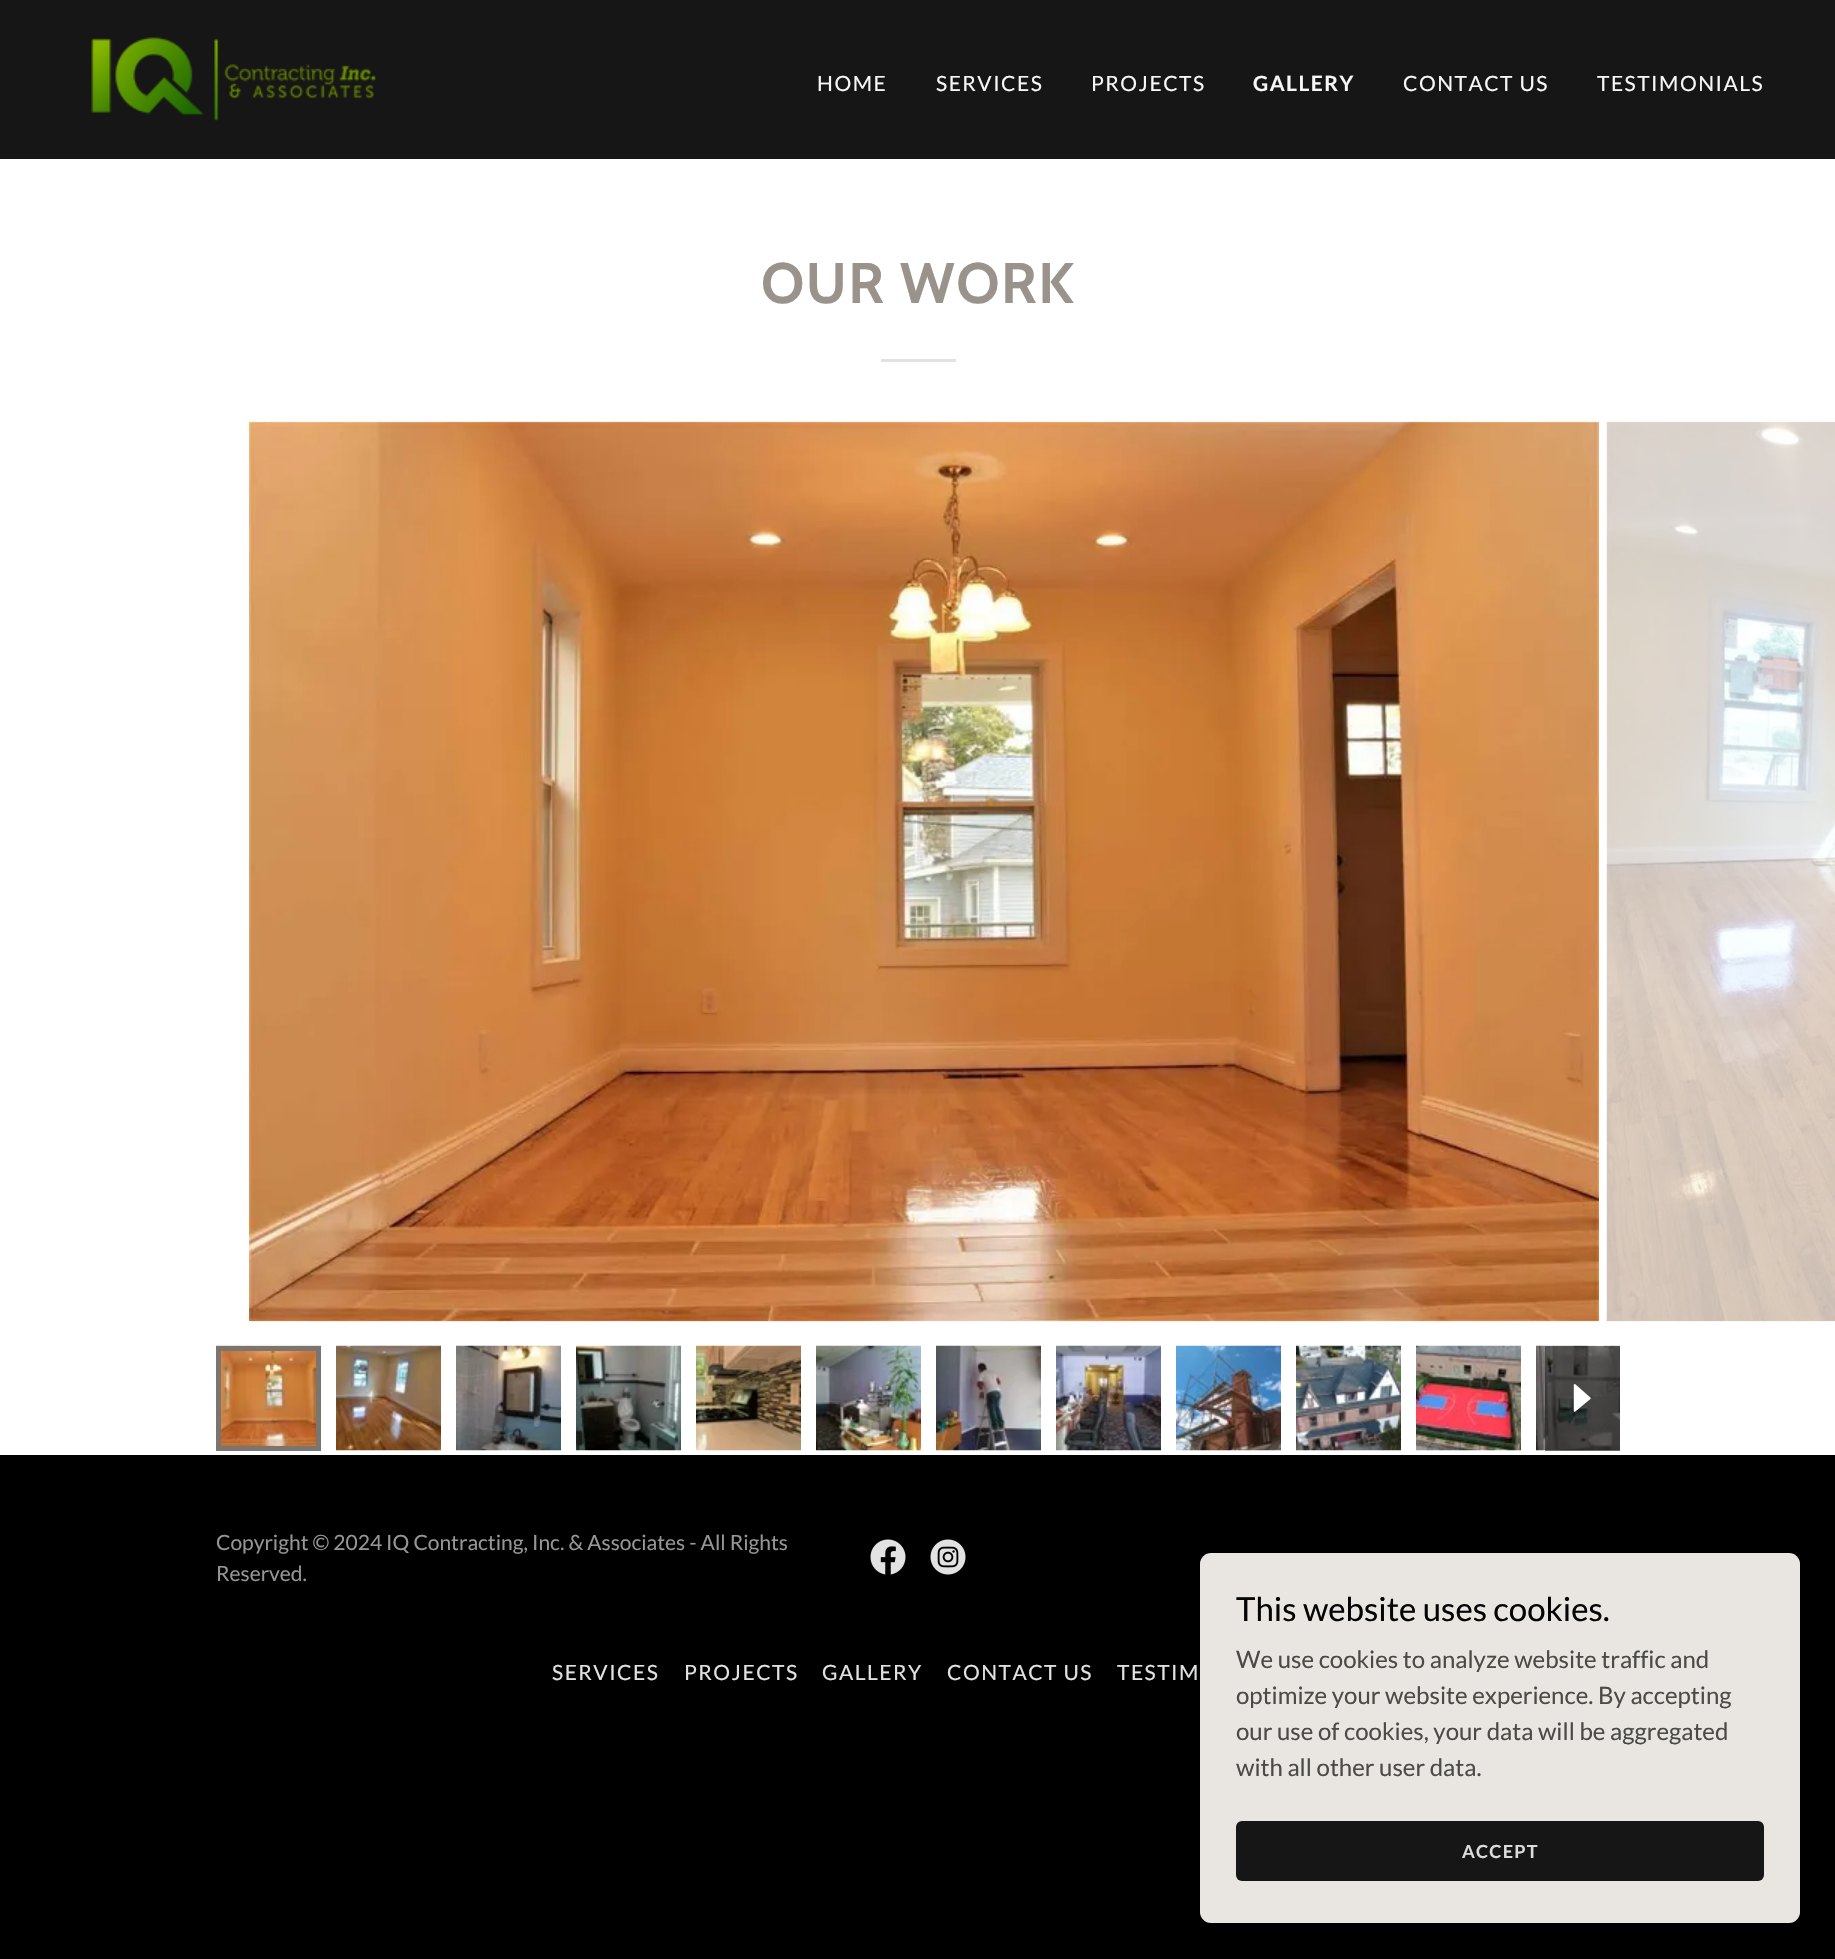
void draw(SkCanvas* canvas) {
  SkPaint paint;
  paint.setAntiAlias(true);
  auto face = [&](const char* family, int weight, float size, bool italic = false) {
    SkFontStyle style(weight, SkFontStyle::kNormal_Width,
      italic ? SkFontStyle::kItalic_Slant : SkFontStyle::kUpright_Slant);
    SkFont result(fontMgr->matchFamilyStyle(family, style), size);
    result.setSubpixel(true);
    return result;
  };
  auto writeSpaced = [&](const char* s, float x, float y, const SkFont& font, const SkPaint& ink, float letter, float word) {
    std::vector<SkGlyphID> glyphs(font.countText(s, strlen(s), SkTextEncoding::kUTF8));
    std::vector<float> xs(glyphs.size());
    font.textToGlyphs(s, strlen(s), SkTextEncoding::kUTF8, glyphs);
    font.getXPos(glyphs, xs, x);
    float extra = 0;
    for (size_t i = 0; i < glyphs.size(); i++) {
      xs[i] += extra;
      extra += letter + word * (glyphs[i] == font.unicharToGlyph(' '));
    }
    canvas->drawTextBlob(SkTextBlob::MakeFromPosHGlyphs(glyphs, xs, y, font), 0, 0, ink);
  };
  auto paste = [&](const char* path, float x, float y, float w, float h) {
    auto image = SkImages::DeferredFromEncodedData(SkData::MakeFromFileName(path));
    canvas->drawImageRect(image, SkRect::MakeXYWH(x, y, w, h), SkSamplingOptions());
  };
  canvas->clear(0xff000000);
  paint.setColor(0xff161616);
  canvas->drawRect(SkRect::MakeXYWH(0, 0, 1835, 159), paint);
  paste("img/1.png", 91, 37, 285, 84);
  paint.setColor(0xffffffff);
  canvas->drawRect(SkRect::MakeXYWH(0, 159, 1835, 1296), paint);
  paint.setColor(0xffe2e2e2);
  canvas->drawRect(SkRect::MakeXYWH(881, 359, 75, 3), paint);
  paste("img/2.png", 249, 421, 1350, 901);
  paste("img/3.png", 1606, 421, 229, 901);
  paste("img/4.png", 216, 1345, 105, 101);
  paint.setStroke(true);
  paint.setStrokeWidth(5);
  paint.setColor(0xff7a766f);
  canvas->drawRect(SkRect::MakeXYWH(218.5f, 1348.5f, 100, 100), paint);
  paste("img/5.png", 336, 1345, 105, 106);
  paste("img/6.png", 456, 1345, 105, 106);
  paste("img/7.png", 576, 1345, 105, 106);
  paste("img/8.png", 696, 1345, 105, 106);
  paste("img/9.png", 816, 1345, 105, 106);
  paste("img/10.png", 936, 1345, 105, 106);
  paste("img/11.png", 1056, 1345, 105, 106);
  paste("img/12.png", 1176, 1345, 105, 106);
  paste("img/13.png", 1296, 1345, 105, 106);
  paste("img/14.png", 1416, 1345, 105, 106);
  paste("img/15.png", 1536, 1345, 84, 106);
  paint.setStroke(false);
  paint.setColor(0x80000000);
  canvas->drawRect(SkRect::MakeXYWH(1545, 1346, 75, 105), paint);
  paste("img/16.png", 1573, 1384, 18, 28);
  paste("img/17.png", 870, 1539, 36, 36);
  paste("img/18.png", 930, 1539, 36, 36);
  paint.setColor(0x4d000000);
  paint.setMaskFilter(SkMaskFilter::MakeBlur(kNormal_SkBlurStyle, 4.5f));
  canvas->drawRoundRect(SkRect::MakeXYWH(1200, 1556, 600, 370), 11, 11, paint);
  paint.setMaskFilter(nullptr);
  paint.setColor(0xffe9e6e2);
  canvas->drawRoundRect(SkRect::MakeXYWH(1200, 1553, 600, 370), 11, 11, paint);
  paint.setColor(0xff161616);
  canvas->drawRoundRect(SkRect::MakeXYWH(1236, 1821, 528, 60), 6, 6, paint);
  auto f0 = face("Lato", 400, 21);
  paint.setColor(0xfff7f7f7);
  {
    const struct { const char* s; float x, y; } items[] = {
      {"HOME", 817, 91},
      {"SERVICES", 936, 91},
      {"PROJECTS", 1091, 91},
    };
    for (auto [s, x, y] : items) {
      writeSpaced(s, x, y, f0, paint, 1.5f, 0);
    }
  }
  auto f1 = face("Lato", 700, 21);
  writeSpaced("GALLERY", 1253, 91, f1, paint, 1.5f, 0);
  writeSpaced("CONTACT US", 1403, 91, f0, paint, 1.5f, 0);
  writeSpaced("TESTIMONIALS", 1597, 91, f0, paint, 1.5f, 0);
  auto f2 = face("Cabin", 700, 57);
  paint.setColor(0xff99938b);
  writeSpaced("OUR WORK", 761, 303, f2, paint, 1.5f, 0);
  paint.setColor(0xff969696);
  canvas->drawString("Copyright © 2024 IQ Contracting, Inc. & Associates - All Rights", 216, 1550, f0, paint);
  canvas->drawString("Reserved.", 216, 1581, f0, paint);
  paint.setColor(0xffe2e2e2);
  {
    const struct { const char* s; float x, y; } items[] = {
      {"SERVICES", 552, 1680},
      {"PROJECTS", 684, 1680},
      {"GALLERY", 822, 1680},
      {"CONTACT US", 947, 1680},
      {"TESTIM", 1117, 1680},
    };
    for (auto [s, x, y] : items) {
      writeSpaced(s, x, y, f0, paint, 1.5f, 0);
    }
  }
  auto f3 = face("Lato", 400, 33);
  paint.setColor(0xff050505);
  canvas->drawString("This website uses cookies.", 1236, 1621, f3, paint);
  auto f4 = face("Lato", 400, 24);
  paint.setColor(0xff4b4a48);
  {
    const struct { const char* s; float x, y; } items[] = {
      {"We use cookies to analyze website traffic and", 1236, 1668},
      {"optimize your website experience. By accepting", 1236, 1704},
      {"our use of cookies, your data will be aggregated", 1236, 1740},
      {"with all other user data.", 1236, 1776},
    };
    for (auto [s, x, y] : items) {
      canvas->drawString(s, x, y, f4, paint);
    }
  }
  auto f5 = face("Lato", 700, 18);
  paint.setColor(0xffdbdbdb);
  writeSpaced("ACCEPT", 1462, 1858, f5, paint, 1.25f, 0);
}
